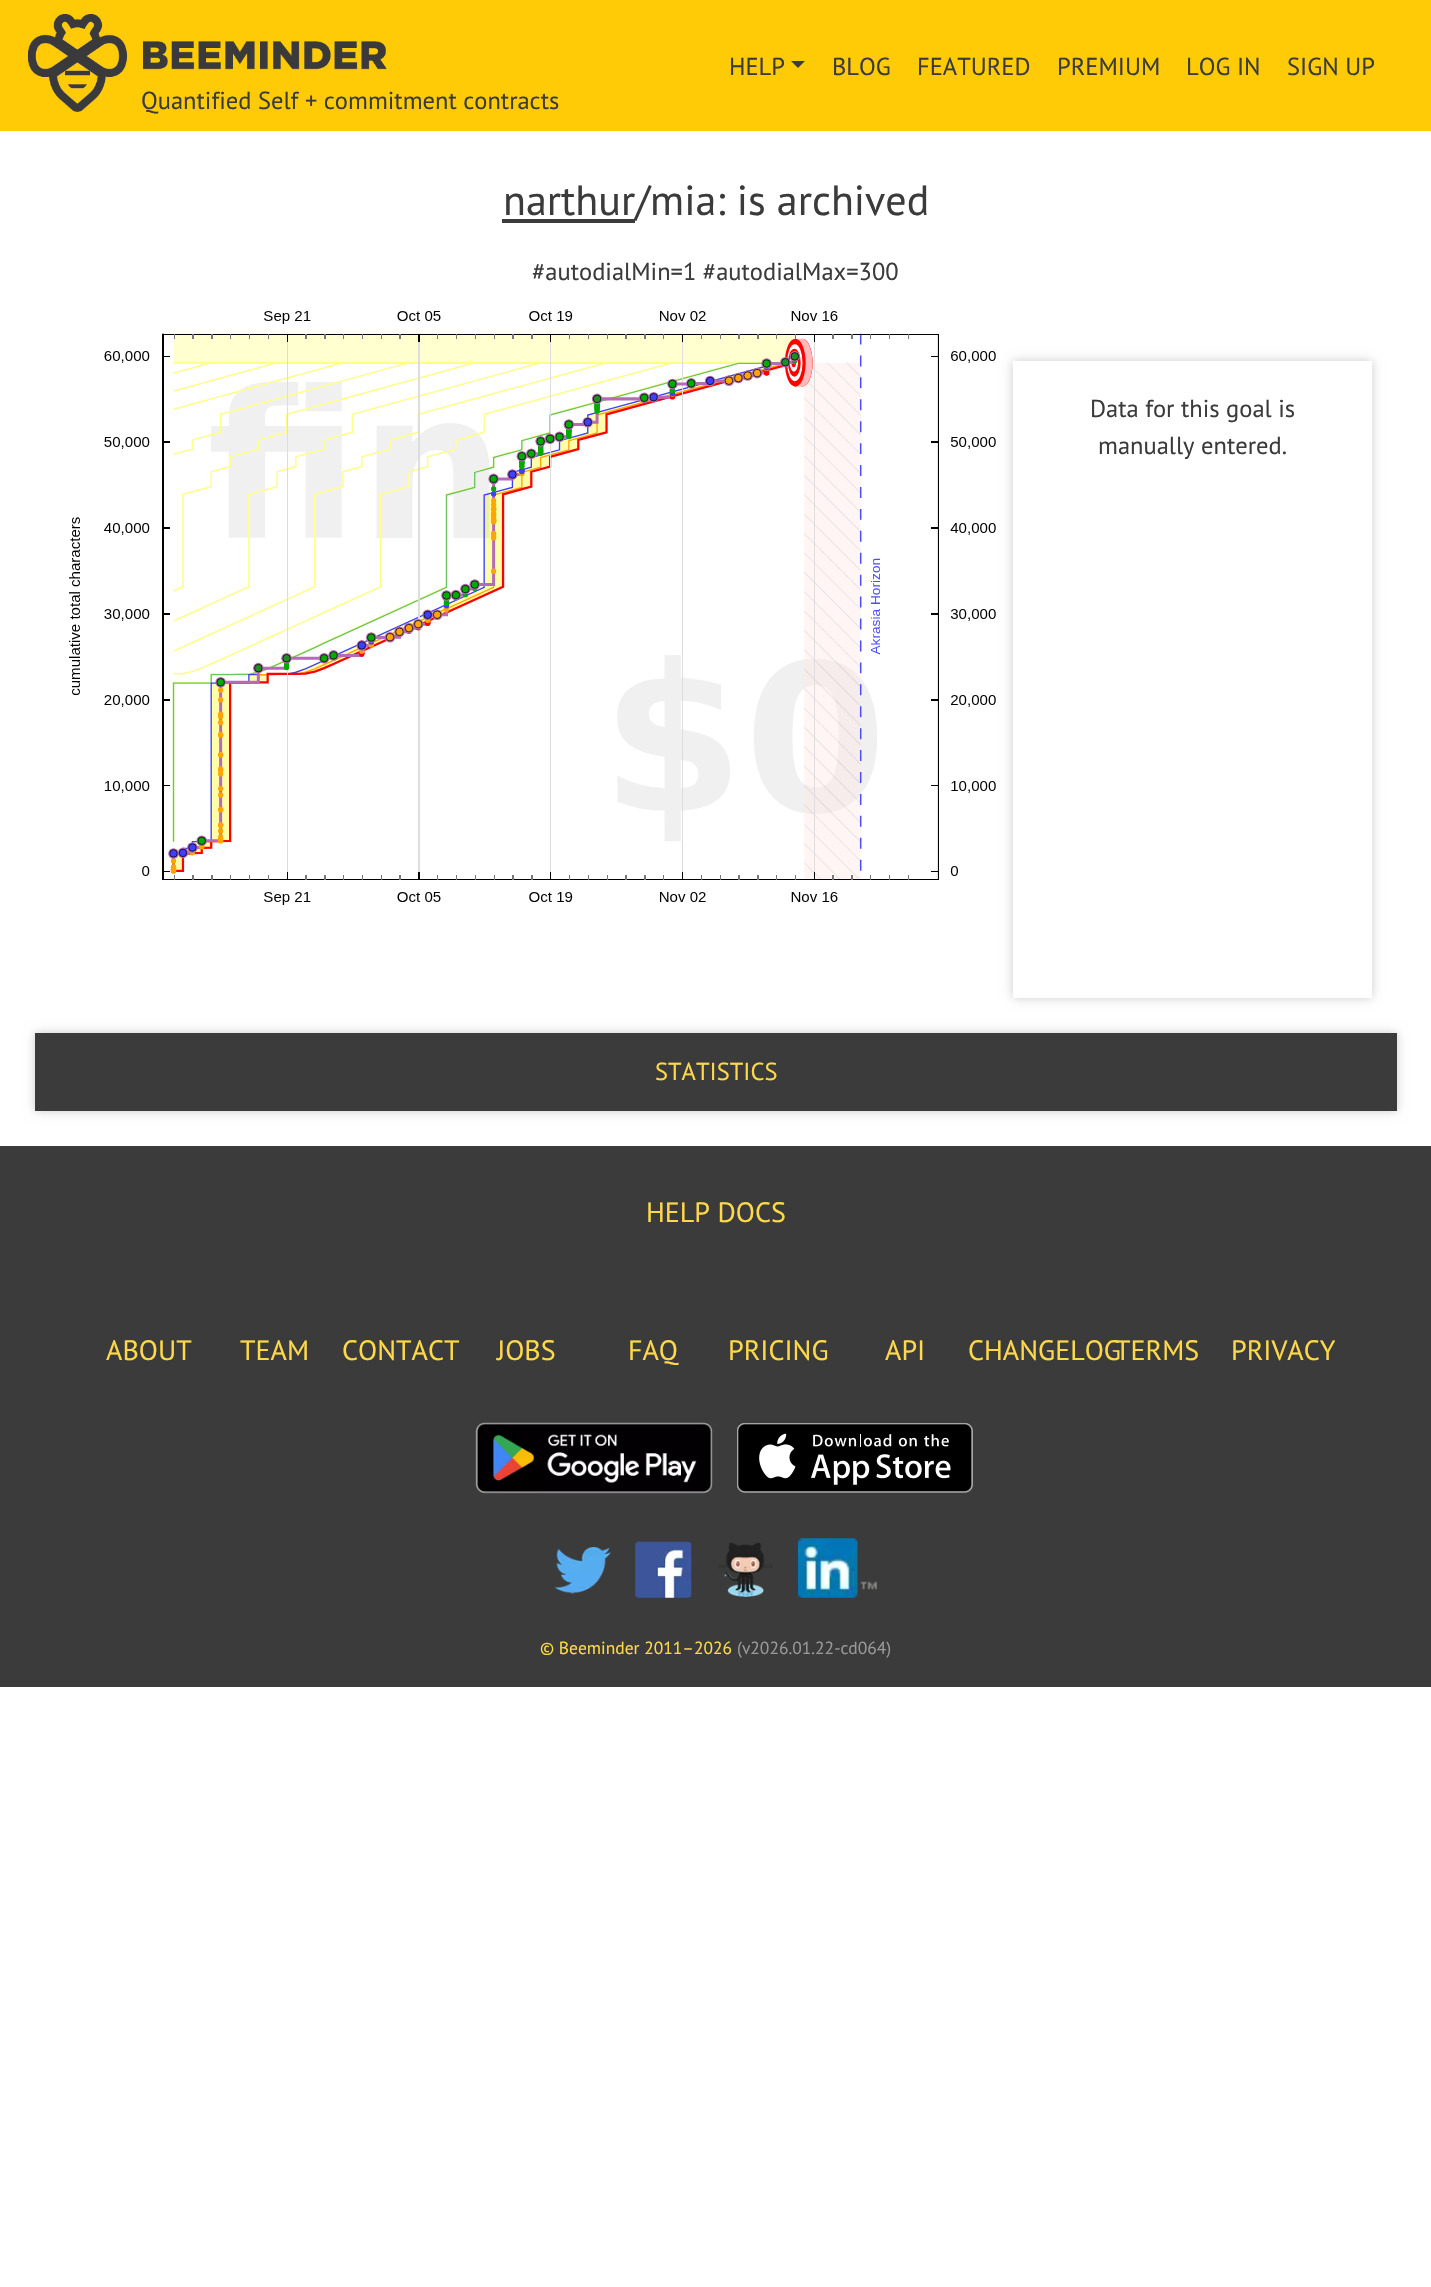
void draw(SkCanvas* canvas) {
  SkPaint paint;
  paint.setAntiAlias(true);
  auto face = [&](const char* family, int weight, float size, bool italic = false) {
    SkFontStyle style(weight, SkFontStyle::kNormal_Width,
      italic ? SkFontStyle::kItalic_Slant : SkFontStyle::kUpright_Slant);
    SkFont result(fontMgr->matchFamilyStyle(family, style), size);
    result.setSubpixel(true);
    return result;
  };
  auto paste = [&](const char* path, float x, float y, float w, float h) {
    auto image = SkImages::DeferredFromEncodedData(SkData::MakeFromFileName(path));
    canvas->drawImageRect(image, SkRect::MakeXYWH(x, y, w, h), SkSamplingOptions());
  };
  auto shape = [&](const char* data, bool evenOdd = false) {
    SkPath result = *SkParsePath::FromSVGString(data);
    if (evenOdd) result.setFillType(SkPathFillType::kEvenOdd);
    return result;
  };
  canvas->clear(0xffffffff);
  paint.setColor(0xffffcb06);
  canvas->drawRect(SkRect::MakeXYWH(0, 0, 1431, 131), paint);
  paint.setColor(0xff3b3b3b);
  canvas->drawPath(shape("M791 61H805L798 68Z"), paint);
  paste("img/1.png", 28, 14, 359, 98);
  canvas->drawRect(SkRect::MakeXYWH(502, 219, 133, 4), paint);
  paste("img/2.png", 69, 311, 927, 594);
  paint.setColor(0xffcccccc);
  paint.setMaskFilter(SkMaskFilter::MakeBlur(kNormal_SkBlurStyle, 5));
  canvas->drawRect(SkRect::MakeXYWH(1013, 361, 359, 637), paint);
  paint.setMaskFilter(nullptr);
  paint.setColor(0xffffffff);
  canvas->drawRect(SkRect::MakeXYWH(1013, 361, 359, 637), paint);
  paint.setColor(0xffcccccc);
  paint.setMaskFilter(SkMaskFilter::MakeBlur(kNormal_SkBlurStyle, 5));
  canvas->drawRect(SkRect::MakeXYWH(35, 1033, 1362, 78), paint);
  paint.setMaskFilter(nullptr);
  paint.setColor(0xff3b3b3b);
  canvas->drawRect(SkRect::MakeXYWH(35, 1033, 1362, 78), paint);
  canvas->drawRect(SkRect::MakeXYWH(0, 1146, 1431, 541), paint);
  paste("img/3.png", 475, 1422, 238, 72);
  paste("img/4.png", 737, 1423, 236, 70);
  paste("img/5.png", 554, 1547, 57, 47);
  paste("img/6.png", 635, 1541, 57, 57);
  paste("img/7.png", 718, 1542, 55, 55);
  paste("img/8.png", 798, 1538, 79, 60);
  auto f0 = face("PT Sans", 400, 24.5f);
  {
    const struct { const char* s; float x, y; } items[] = {
      {"HELP", 729, 75},
      {"BLOG", 832, 75},
      {"FEATURED", 917, 75},
      {"PREMIUM", 1057, 75},
      {"LOG IN", 1186, 75},
      {"SIGN UP", 1287, 75},
      {"Quantified Self + commitment contracts", 141, 109},
    };
    for (auto [s, x, y] : items) {
      canvas->drawString(s, x, y, f0, paint);
    }
  }
  auto f1 = face("PT Sans", 400, 42);
  canvas->drawString("narthur/mia: is archived", 503, 215, f1, paint);
  {
    const struct { const char* s; float x, y; } items[] = {
      {"#autodialMin=1 #autodialMax=300", 532, 280},
      {"Data for this goal is", 1090, 417},
      {"manually entered.", 1098, 454},
    };
    for (auto [s, x, y] : items) {
      canvas->drawString(s, x, y, f0, paint);
    }
  }
  paint.setColor(0xffffd949);
  canvas->drawString("STATISTICS", 655, 1080, f0, paint);
  auto f2 = face("PT Sans", 400, 28);
  {
    const struct { const char* s; float x, y; } items[] = {
      {"HELP DOCS", 646, 1222},
      {"ABOUT", 106, 1360},
      {"TEAM", 240, 1360},
      {"CONTACT", 342, 1360},
      {"JOBS", 497, 1360},
      {"FAQ", 628, 1360},
      {"PRICING", 728, 1360},
      {"API", 885, 1360},
      {"CHANGELOG", 968, 1360},
      {"TERMS", 1115, 1360},
      {"PRIVACY", 1231, 1360},
    };
    for (auto [s, x, y] : items) {
      canvas->drawString(s, x, y, f2, paint);
    }
  }
  auto f3 = face("PT Sans", 400, 17.5f);
  canvas->drawString("© Beeminder 2011–2026", 540, 1654, f3, paint);
  paint.setColor(0xff999999);
  canvas->drawString("(v2026.01.22-cd064)", 737, 1654, f3, paint);
}
